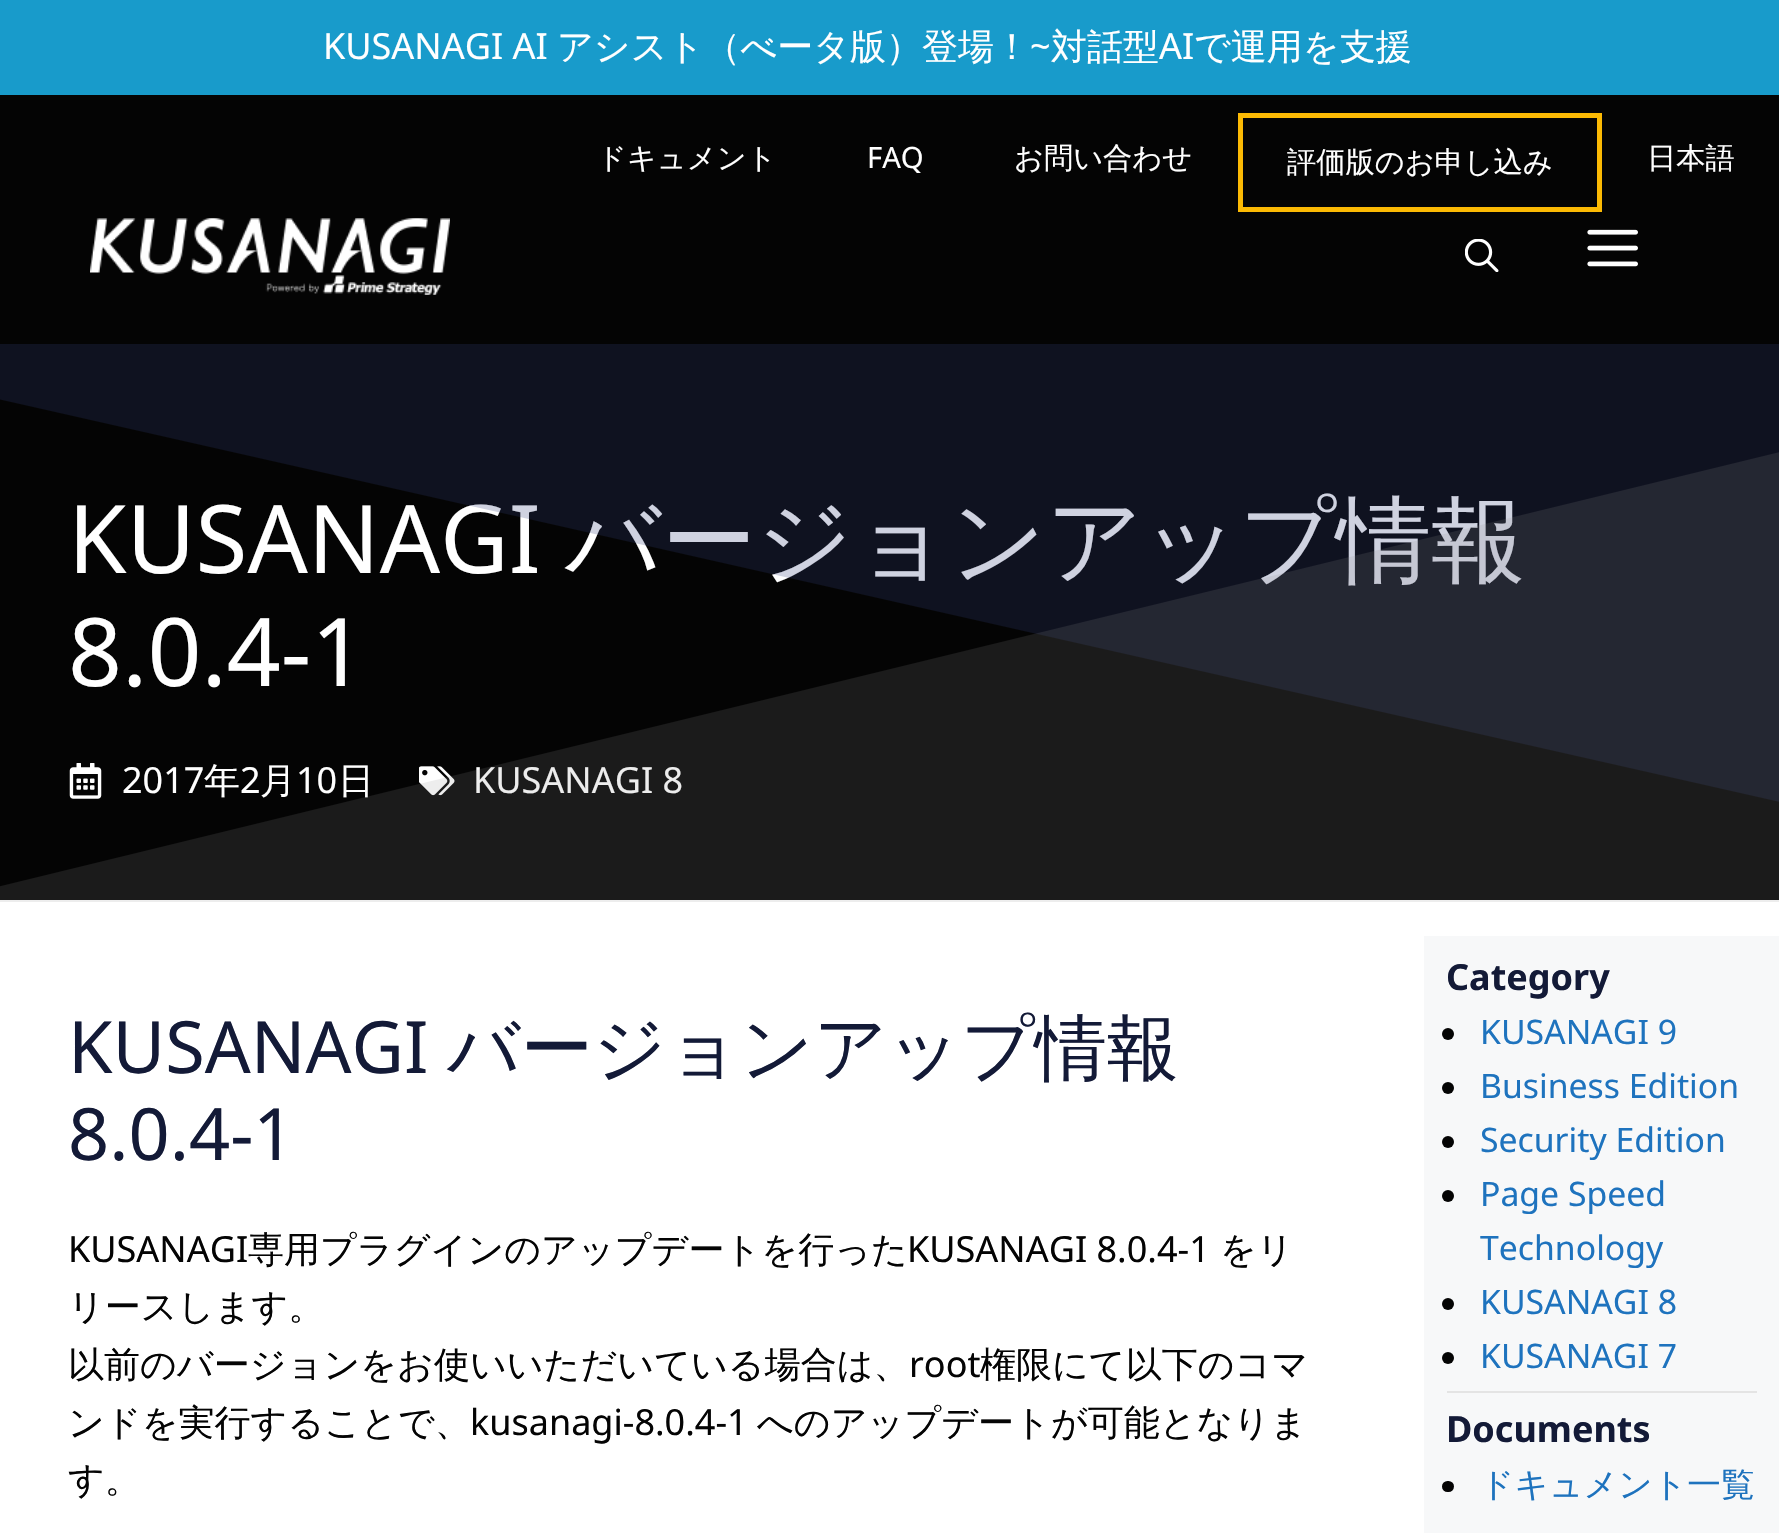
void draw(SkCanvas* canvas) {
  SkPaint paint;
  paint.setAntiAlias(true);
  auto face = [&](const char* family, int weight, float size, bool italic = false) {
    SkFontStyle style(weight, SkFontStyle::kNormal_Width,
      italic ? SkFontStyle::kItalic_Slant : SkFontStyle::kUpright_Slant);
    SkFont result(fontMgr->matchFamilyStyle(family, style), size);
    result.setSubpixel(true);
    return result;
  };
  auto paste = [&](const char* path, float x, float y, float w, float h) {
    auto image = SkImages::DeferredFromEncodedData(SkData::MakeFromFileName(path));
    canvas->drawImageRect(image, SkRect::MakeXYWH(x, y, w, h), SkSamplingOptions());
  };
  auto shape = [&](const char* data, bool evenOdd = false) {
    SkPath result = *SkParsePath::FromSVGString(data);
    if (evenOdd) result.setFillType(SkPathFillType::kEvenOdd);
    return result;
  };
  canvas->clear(0xffffffff);
  paint.setColor(0xff189bcb);
  canvas->drawRect(SkRect::MakeXYWH(0, 0, 1779, 95), paint);
  paint.setColor(0xff040404);
  canvas->drawRect(SkRect::MakeXYWH(0, 95, 1779, 805), paint);
  paint.setStroke(true);
  paint.setStrokeWidth(5);
  paint.setColor(0xfffcba04);
  canvas->drawRect(SkRect::MakeXYWH(1240.5f, 115.5f, 359, 94), paint);
  paste("img/1.png", 90, 218, 360, 77);
  paste("img/2.png", 1465, 239, 34, 33);
  paste("img/3.png", 1587, 229, 51, 38);
  paste("img/4.png", 69, 763, 33, 36);
  paste("img/5.png", 419, 766, 36, 30);
  paint.setStroke(false);
  paint.setColor(0xfff7f8f9);
  canvas->drawRect(SkRect::MakeXYWH(1424, 936, 355, 597), paint);
  paint.setColor(0xff040404);
  canvas->drawCircle(1448, 1034, 6, paint);
  canvas->drawCircle(1448, 1088, 6, paint);
  canvas->drawCircle(1448, 1142, 6, paint);
  canvas->drawCircle(1448, 1196, 6, paint);
  canvas->drawCircle(1448, 1304, 6, paint);
  canvas->drawCircle(1448, 1358, 6, paint);
  paint.setColor(0xffe4e4e4);
  canvas->drawRect(SkRect::MakeXYWH(1447, 1391, 310, 2), paint);
  paint.setColor(0xff040404);
  canvas->drawRoundRect(SkRect::MakeXYWH(1442, 1481, 12, 11), 5.5f, 5.5f, paint);
  auto f0 = face("Noto Sans", 400, 36);
  paint.setColor(0xffffffff);
  canvas->drawString("KUSANAGI AI", 323, 59, f0, paint);
  auto f1 = face("WenQuanYi Zen Hei", 500, 36);
  canvas->drawString("アシスト（べータ版）登場！", 557, 59, f1, paint);
  canvas->drawString("~", 1030, 59, f0, paint);
  canvas->drawString("対話型", 1051, 59, f1, paint);
  canvas->drawString("AI", 1159, 59, f0, paint);
  canvas->drawString("で運用を支援", 1194, 59, f1, paint);
  auto f2 = face("WenQuanYi Zen Hei", 500, 29.25f);
  canvas->drawString("ドキュメント", 597, 168, f2, paint);
  auto f3 = face("Noto Sans", 400, 29.25f);
  canvas->drawString("FAQ", 867, 168, f3, paint);
  {
    const struct { const char* s; float x, y; } items[] = {
      {"お問い合わせ", 1014, 168},
      {"評価版のお申し込み", 1287, 172},
      {"日本語", 1647, 168},
    };
    for (auto [s, x, y] : items) {
      canvas->drawString(s, x, y, f2, paint);
    }
  }
  auto f4 = face("Noto Sans", 400, 94.5f);
  canvas->drawString("KUSANAGI", 68, 573, f4, paint);
  auto f5 = face("WenQuanYi Zen Hei", 500, 94.5f);
  canvas->drawString("バージョンアップ情報", 565, 573, f5, paint);
  canvas->drawString("8.0.4-1", 68, 686, f4, paint);
  canvas->drawString("2017", 122, 793, f0, paint);
  canvas->drawString("年", 204, 793, f1, paint);
  canvas->drawString("2", 240, 793, f0, paint);
  canvas->drawString("月", 260, 793, f1, paint);
  canvas->drawString("10", 296, 793, f0, paint);
  canvas->drawString("日", 338, 793, f1, paint);
  canvas->drawString("KUSANAGI 8", 473, 793, f0, paint);
  canvas->save();
  canvas->clipRect(SkRect::MakeXYWH(0, 344, 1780, 500));
  paint.setColor(0x3b313c78);
  canvas->drawPath(shape("M-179 342H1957V842L-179 359Z"), paint);
  canvas->restore();
  paint.setColor(0x298f8d8d);
  canvas->drawPath(shape("M-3 902H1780V452L-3 887Z"), paint);
  auto f6 = face("Noto Sans", 400, 72);
  paint.setColor(0xff131a37);
  canvas->drawString("KUSANAGI", 68, 1073, f6, paint);
  auto f7 = face("WenQuanYi Zen Hei", 500, 72);
  canvas->drawString("バージョンアップ情報", 447, 1073, f7, paint);
  canvas->drawString("8.0.4-1", 68, 1160, f6, paint);
  paint.setColor(0xff040404);
  canvas->drawString("KUSANAGI", 68, 1262, f0, paint);
  canvas->drawString("専用プラグインのアップデートを行った", 248, 1262, f1, paint);
  canvas->drawString("KUSANAGI 8.0.4-1", 907, 1262, f0, paint);
  {
    const struct { const char* s; float x, y; } items[] = {
      {"をリ", 1220, 1262},
      {"リースします。", 68, 1319},
      {"以前のバージョンをお使いいただいている場合は、", 68, 1377},
    };
    for (auto [s, x, y] : items) {
      canvas->drawString(s, x, y, f1, paint);
    }
  }
  canvas->drawString("root", 909, 1377, f0, paint);
  canvas->drawString("権限にて以下のコマ", 980, 1377, f1, paint);
  canvas->drawString("ンドを実行することで、", 68, 1435, f1, paint);
  canvas->drawString("kusanagi-8.0.4-1", 470, 1435, f0, paint);
  canvas->drawString("へのアップデートが可能となりま", 757, 1435, f1, paint);
  canvas->drawString("す。", 68, 1492, f1, paint);
  auto f8 = face("Noto Sans", 700, 36);
  paint.setColor(0xff131a37);
  canvas->drawString("Category", 1446, 990, f8, paint);
  auto f9 = face("Noto Sans", 400, 33.75f);
  paint.setColor(0xff1e73be);
  {
    const struct { const char* s; float x, y; } items[] = {
      {"KUSANAGI 9", 1480, 1044},
      {"Business Edition", 1480, 1098},
      {"Security Edition", 1480, 1152},
      {"Page Speed", 1480, 1206},
      {"Technology", 1480, 1260},
      {"KUSANAGI 8", 1480, 1314},
      {"KUSANAGI 7", 1480, 1368},
    };
    for (auto [s, x, y] : items) {
      canvas->drawString(s, x, y, f9, paint);
    }
  }
  paint.setColor(0xff131a37);
  canvas->drawString("Documents", 1446, 1442, f8, paint);
  auto f10 = face("WenQuanYi Zen Hei", 500, 33.75f);
  paint.setColor(0xff1e73be);
  canvas->drawString("ドキュメント一覧", 1480, 1496, f10, paint);
}
